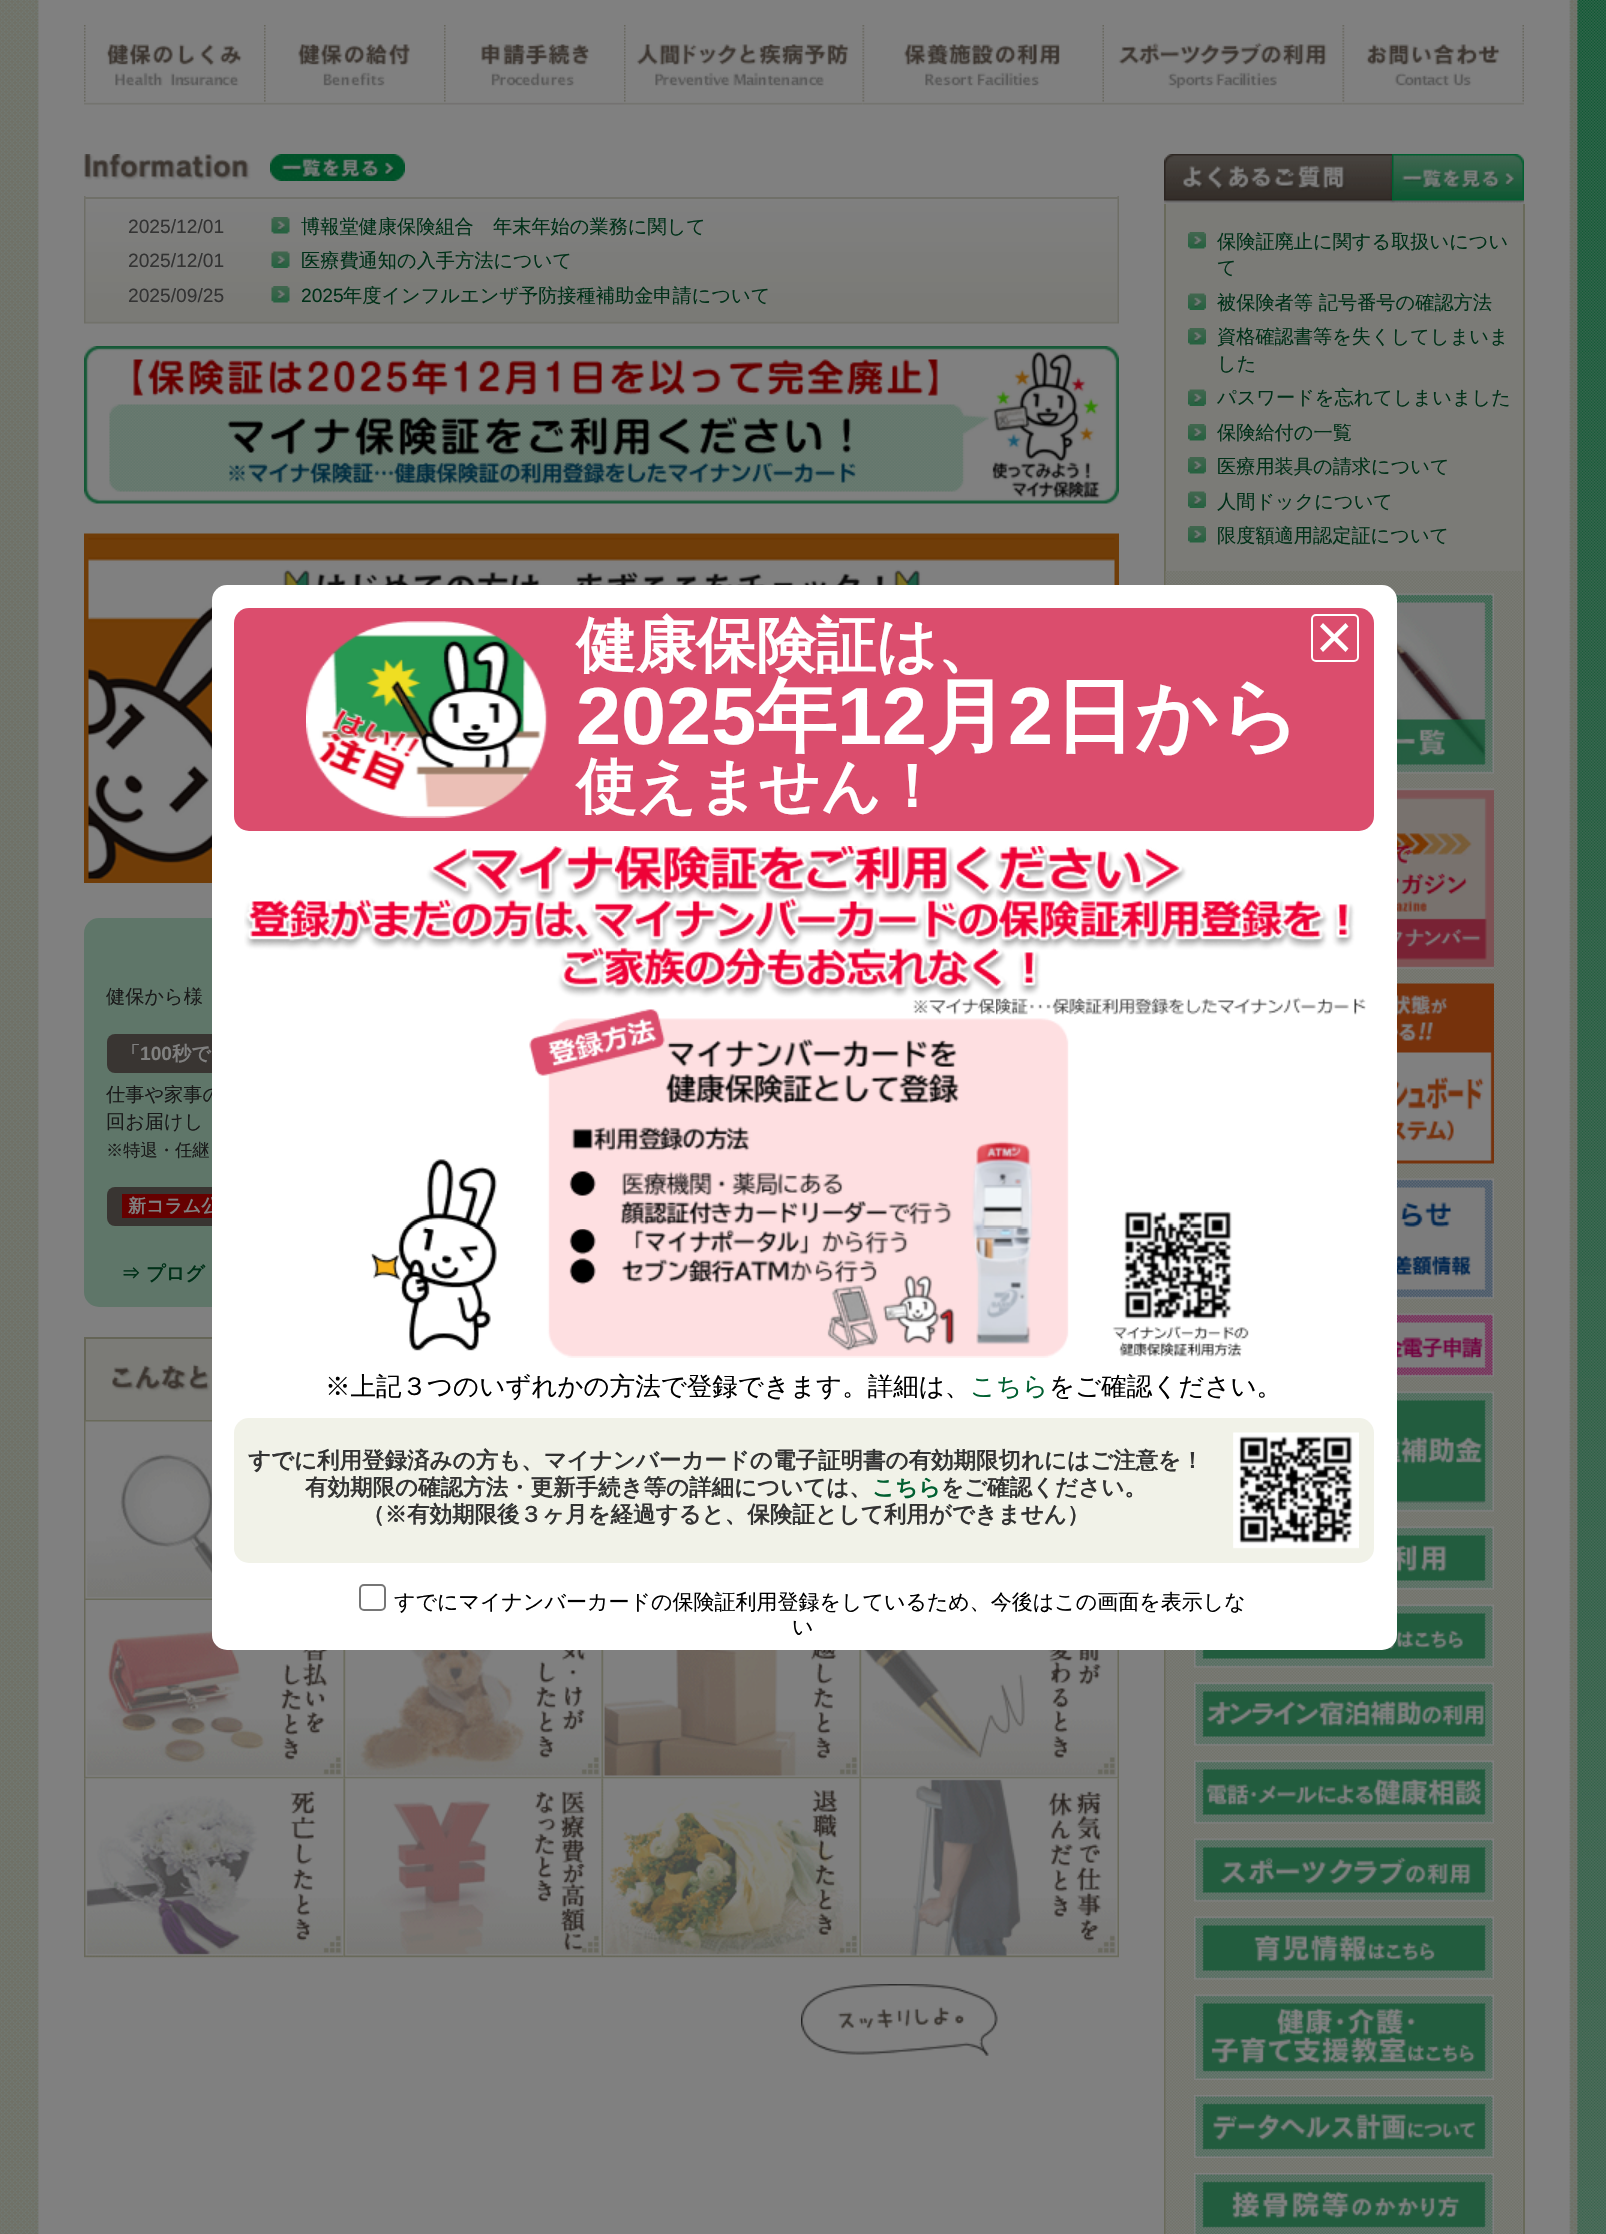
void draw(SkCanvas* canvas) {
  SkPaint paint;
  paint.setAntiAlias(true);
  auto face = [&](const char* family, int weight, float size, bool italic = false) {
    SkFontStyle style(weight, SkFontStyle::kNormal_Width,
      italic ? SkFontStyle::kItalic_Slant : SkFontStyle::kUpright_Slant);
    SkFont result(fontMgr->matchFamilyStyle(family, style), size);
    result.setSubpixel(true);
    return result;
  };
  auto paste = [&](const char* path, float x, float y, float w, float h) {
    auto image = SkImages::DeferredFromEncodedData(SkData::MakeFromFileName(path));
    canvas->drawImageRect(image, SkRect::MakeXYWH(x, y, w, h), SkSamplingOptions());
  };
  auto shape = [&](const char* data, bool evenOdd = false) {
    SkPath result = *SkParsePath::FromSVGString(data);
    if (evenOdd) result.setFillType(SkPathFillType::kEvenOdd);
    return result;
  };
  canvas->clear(0xffffffff);
  paste("img/1.png", 0, 0, 1606, 2234);
  paste("img/2.png", 84, 25, 180, 80);
  paste("img/3.png", 264, 25, 180, 80);
  paste("img/4.png", 444, 25, 180, 80);
  paste("img/5.png", 624, 25, 239, 80);
  paste("img/6.png", 862, 25, 242, 80);
  paste("img/7.png", 1104, 42, 239, 63);
  paste("img/8.png", 1342, 25, 182, 80);
  paste("img/9.png", 84, 154, 167, 27);
  paste("img/10.png", 270, 154, 135, 27);
  paste("img/11.png", 84, 196, 1035, 128);
  paint.setColor(0xff707069);
  canvas->drawRect(SkRect::MakeXYWH(84, 197, 1035, 2), paint);
  paste("img/12.png", 271, 217, 19, 17);
  paste("img/13.png", 271, 251, 19, 17);
  paste("img/14.png", 271, 286, 19, 17);
  paste("img/15.png", 84, 346, 1035, 158);
  paste("img/16.png", 84, 533, 1035, 350);
  paint.setColor(0xff5f7669);
  canvas->drawRoundRect(SkRect::MakeXYWH(84, 918, 1035, 389), 15, 15, paint);
  paint.setColor(0xff393532);
  canvas->drawRoundRect(SkRect::MakeXYWH(107, 1034, 549, 39), 8, 8, paint);
  canvas->drawRoundRect(SkRect::MakeXYWH(107, 1187, 441, 39), 8, 8, paint);
  {
    const struct { float x, y, w, h; SkColor color; } items[] = {
      {122, 1194, 90, 24, 0xff660000},
      {84, 1339, 1035, 619, 0xff7b7b77},
      {84, 1337, 128, 2, 0xff656557},
      {84, 1337, 2, 84, 0xff656557},
    };
    for (auto [x, y, w, h, color] : items) {
      paint.setColor(color);
      canvas->drawRect(SkRect::MakeXYWH(x, y, w, h), paint);
    }
  }
  paste("img/20.png", 112, 1364, 100, 29);
  paste("img/21.png", 84, 1420, 128, 180);
  paste("img/22.png", 84, 1600, 260, 179);
  paste("img/23.png", 343, 1650, 259, 129);
  paste("img/24.png", 601, 1650, 259, 129);
  paste("img/25.png", 859, 1650, 260, 129);
  paste("img/26.png", 84, 1778, 260, 179);
  paste("img/27.png", 343, 1778, 259, 179);
  paste("img/28.png", 601, 1778, 259, 179);
  paste("img/29.png", 859, 1778, 260, 179);
  paste("img/30.png", 801, 1984, 197, 72);
  paste("img/31.png", 1164, 154, 228, 50);
  paste("img/32.png", 1392, 154, 132, 50);
  {
    const struct { float x, y, w, h; SkColor color; } items[] = {
      {1166, 204, 357, 2030, 0xff7b7b77},
      {1523, 204, 2, 2030, 0xff696a5a},
      {1164, 204, 2, 2030, 0xff696a5a},
    };
    for (auto [x, y, w, h, color] : items) {
      paint.setColor(color);
      canvas->drawRect(SkRect::MakeXYWH(x, y, w, h), paint);
    }
  }
  paste("img/33.png", 1188, 232, 18, 17);
  paste("img/34.png", 1188, 293, 18, 17);
  paste("img/33.png", 1188, 328, 18, 17);
  paste("img/34.png", 1188, 389, 18, 17);
  paste("img/33.png", 1188, 424, 18, 17);
  paste("img/33.png", 1188, 457, 18, 17);
  paste("img/34.png", 1188, 491, 18, 17);
  paste("img/33.png", 1188, 526, 18, 17);
  paste("img/35.png", 1165, 571, 358, 1663);
  paste("img/36.png", 1395, 593, 99, 181);
  paste("img/37.png", 1397, 788, 97, 181);
  paste("img/38.png", 1397, 983, 97, 181);
  paste("img/39.png", 1397, 1178, 97, 121);
  paste("img/40.png", 1397, 1313, 97, 64);
  paste("img/41.png", 1397, 1391, 97, 121);
  paste("img/42.png", 1397, 1526, 97, 64);
  paste("img/43.png", 1194, 1604, 300, 64);
  paste("img/44.png", 1194, 1682, 300, 64);
  paste("img/45.png", 1194, 1760, 300, 64);
  paste("img/46.png", 1194, 1838, 300, 64);
  paste("img/47.png", 1194, 1916, 300, 64);
  paste("img/48.png", 1194, 1994, 300, 86);
  paste("img/49.png", 1194, 2095, 300, 63);
  paste("img/50.png", 1194, 2173, 300, 61);
  auto f0 = face("Liberation Sans", 400, 19.2f);
  paint.setColor(0xff333333);
  canvas->drawString("2025/12/01", 128, 233, f0, paint);
  auto f1 = face("WenQuanYi Zen Hei", 500, 19.2f);
  paint.setColor(0xff003018);
  canvas->drawString("博報堂健康保険組合　年末年始の業務に関して", 301, 233, f1, paint);
  paint.setColor(0xff333333);
  canvas->drawString("2025/12/01", 128, 267, f0, paint);
  paint.setColor(0xff003018);
  canvas->drawString("医療費通知の入手方法について", 301, 267, f1, paint);
  paint.setColor(0xff333333);
  canvas->drawString("2025/09/25", 128, 302, f0, paint);
  paint.setColor(0xff003018);
  canvas->drawString("2025", 301, 302, f0, paint);
  canvas->drawString("年度インフルエンザ予防接種補助金申請について", 343, 302, f1, paint);
  paint.setColor(0xff1a1a1a);
  canvas->drawString("健保から様", 106, 1003, f1, paint);
  auto f2 = face("WenQuanYi Zen Hei", 700, 19.2f);
  paint.setColor(0xff808080);
  canvas->drawString("「", 121, 1060, f2, paint);
  auto f3 = face("Liberation Sans", 700, 19.2f);
  canvas->drawString("100", 140, 1060, f3, paint);
  canvas->drawString("秒で", 172, 1060, f2, paint);
  paint.setColor(0xff1a1a1a);
  canvas->drawString("仕事や家事の", 106, 1101, f1, paint);
  canvas->drawString("回お届けし", 106, 1128, f1, paint);
  auto f4 = face("WenQuanYi Zen Hei", 500, 17.25f);
  canvas->drawString("※特退・任継", 106, 1156, f4, paint);
  auto f5 = face("WenQuanYi Zen Hei", 700, 18);
  paint.setColor(0xff808080);
  canvas->drawString("新コラム公", 128, 1212, f5, paint);
  paint.setColor(0xff003018);
  canvas->drawString("⇒ プログ", 121, 1280, f2, paint);
  paint.setColor(0xffffffff);
  canvas->drawRoundRect(SkRect::MakeXYWH(212, 585, 1185, 1065), 15, 15, paint);
  paint.setColor(0xffdb4d6d);
  canvas->drawRoundRect(SkRect::MakeXYWH(234, 608, 1140, 223), 15, 15, paint);
  paste("img/17.png", 306, 621, 242, 197);
  auto f6 = face("WenQuanYi Zen Hei", 700, 60);
  paint.setColor(0xffffffff);
  canvas->drawString("健康保険証は、", 576, 666, f6, paint);
  auto f7 = face("Liberation Sans", 700, 81);
  canvas->drawString("2025", 576, 744, f7, paint);
  auto f8 = face("WenQuanYi Zen Hei", 700, 81);
  canvas->drawString("年", 756, 744, f8, paint);
  canvas->drawString("12", 837, 744, f7, paint);
  canvas->drawString("月", 927, 744, f8, paint);
  canvas->drawString("2", 1008, 744, f7, paint);
  canvas->drawString("日から", 1054, 744, f8, paint);
  canvas->drawString("使えません！", 576, 807, f6, paint);
  paint.setStroke(true);
  paint.setStrokeWidth(2);
  canvas->drawRoundRect(SkRect::MakeXYWH(1312, 615, 46, 46), 4, 4, paint);
  paint.setStroke(false);
  canvas->drawPath(shape("M1323 623L1348.5 648.5L1345.5 652L1320 626.5Z"), paint);
  canvas->drawPath(shape("M1320 648.5L1345.5 623L1348.5 626.5L1323 652Z"), paint);
  paste("img/18.png", 244, 846, 1122, 512);
  auto f9 = face("WenQuanYi Zen Hei", 500, 25.5f);
  paint.setColor(0xff000000);
  canvas->drawString("※上記３つのいずれかの方法で登録できます。詳細は、", 325, 1395, f9, paint);
  paint.setColor(0xff005f30);
  canvas->drawString("こちら", 970, 1395, f9, paint);
  paint.setColor(0xff000000);
  canvas->drawString("をご確認ください。", 1049, 1395, f9, paint);
  paint.setColor(0xfff1f2e8);
  canvas->drawRoundRect(SkRect::MakeXYWH(234, 1418, 1140, 145), 15, 15, paint);
  auto f10 = face("WenQuanYi Zen Hei", 700, 22.5f);
  paint.setColor(0xff333333);
  canvas->drawString("すでに利用登録済みの方も、マイナンバーカードの電子証明書の有効期限切れにはご注意を！", 248, 1468, f10, paint);
  canvas->drawString("有効期限の確認方法・更新手続き等の詳細については、", 305, 1495, f10, paint);
  paint.setColor(0xff005f30);
  canvas->drawString("こちら", 872, 1495, f10, paint);
  paint.setColor(0xff333333);
  canvas->drawString("をご確認ください。", 941, 1495, f10, paint);
  canvas->drawString("（※有効期限後３ヶ月を経過すると、保険証として利用ができません）", 362, 1522, f10, paint);
  paste("img/19.png", 1233, 1432, 126, 117);
  paint.setStroke(true);
  paint.setColor(0xff767676);
  canvas->drawRoundRect(SkRect::MakeXYWH(360, 1585, 25, 25), 4, 4, paint);
  auto f11 = face("WenQuanYi Zen Hei", 500, 21);
  paint.setStroke(false);
  paint.setColor(0xff000000);
  canvas->drawString("すでにマイナンバーカードの保険証利用登録をしているため、今後はこの画面を表示しな", 394, 1609, f11, paint);
  canvas->drawString("い", 792, 1634, f11, paint);
  paint.setColor(0xff003018);
  {
    const struct { const char* s; float x, y; } items[] = {
      {"保険証廃止に関する取扱いについ", 1217, 248},
      {"て", 1217, 274},
      {"被保険者等 記号番号の確認方法", 1217, 309},
      {"資格確認書等を失くしてしまいま", 1217, 343},
      {"した", 1217, 370},
      {"パスワードを忘れてしまいました", 1217, 404},
      {"保険給付の一覧", 1217, 439},
      {"医療用装具の請求について", 1217, 473},
      {"人間ドックについて", 1217, 508},
      {"限度額適用認定証について", 1217, 542},
    };
    for (auto [s, x, y] : items) {
      canvas->drawString(s, x, y, f1, paint);
    }
  }
}
